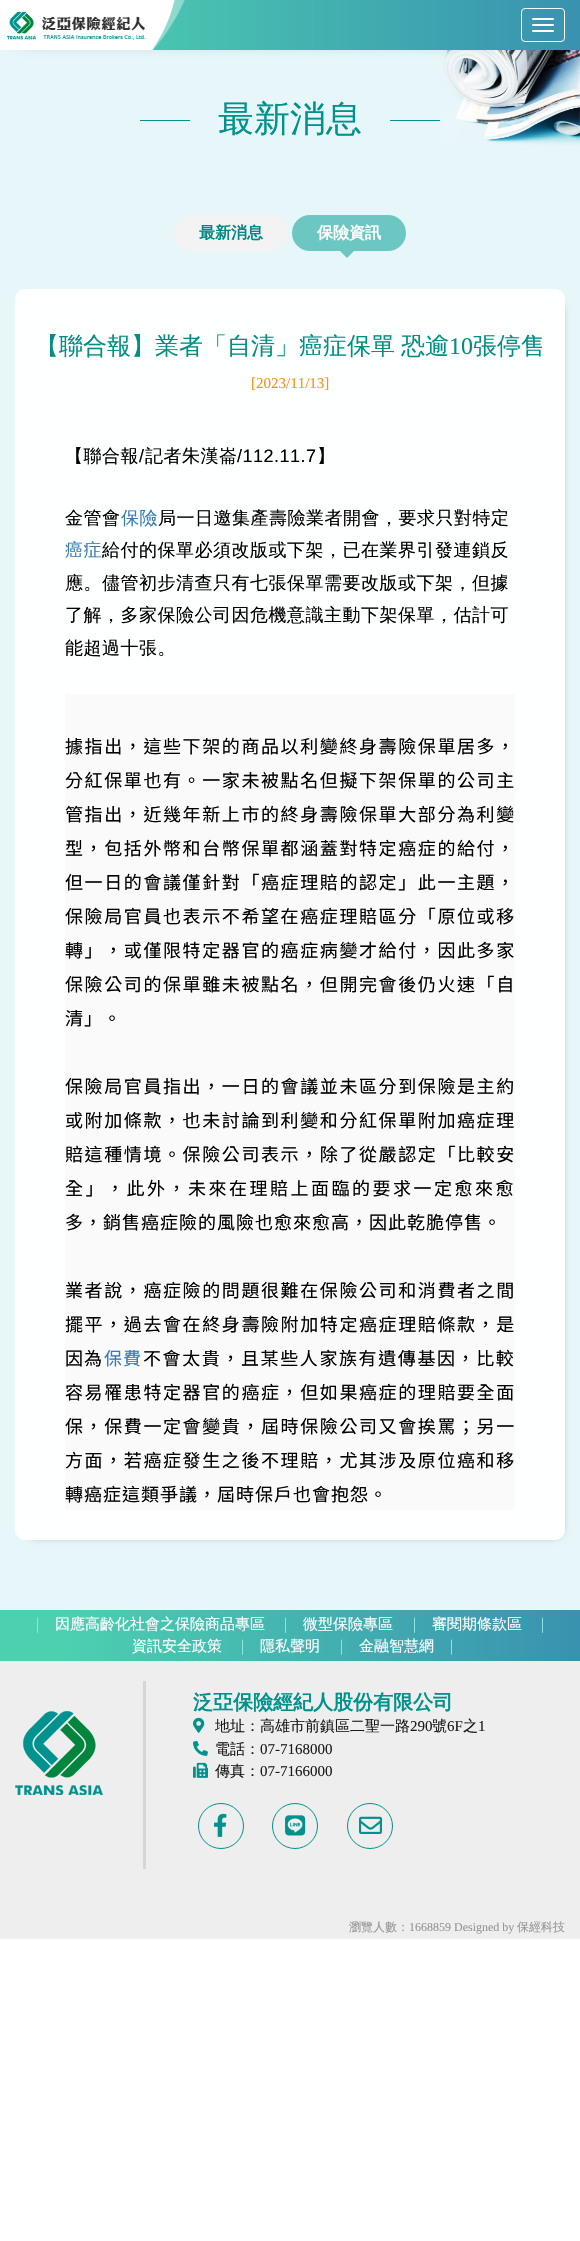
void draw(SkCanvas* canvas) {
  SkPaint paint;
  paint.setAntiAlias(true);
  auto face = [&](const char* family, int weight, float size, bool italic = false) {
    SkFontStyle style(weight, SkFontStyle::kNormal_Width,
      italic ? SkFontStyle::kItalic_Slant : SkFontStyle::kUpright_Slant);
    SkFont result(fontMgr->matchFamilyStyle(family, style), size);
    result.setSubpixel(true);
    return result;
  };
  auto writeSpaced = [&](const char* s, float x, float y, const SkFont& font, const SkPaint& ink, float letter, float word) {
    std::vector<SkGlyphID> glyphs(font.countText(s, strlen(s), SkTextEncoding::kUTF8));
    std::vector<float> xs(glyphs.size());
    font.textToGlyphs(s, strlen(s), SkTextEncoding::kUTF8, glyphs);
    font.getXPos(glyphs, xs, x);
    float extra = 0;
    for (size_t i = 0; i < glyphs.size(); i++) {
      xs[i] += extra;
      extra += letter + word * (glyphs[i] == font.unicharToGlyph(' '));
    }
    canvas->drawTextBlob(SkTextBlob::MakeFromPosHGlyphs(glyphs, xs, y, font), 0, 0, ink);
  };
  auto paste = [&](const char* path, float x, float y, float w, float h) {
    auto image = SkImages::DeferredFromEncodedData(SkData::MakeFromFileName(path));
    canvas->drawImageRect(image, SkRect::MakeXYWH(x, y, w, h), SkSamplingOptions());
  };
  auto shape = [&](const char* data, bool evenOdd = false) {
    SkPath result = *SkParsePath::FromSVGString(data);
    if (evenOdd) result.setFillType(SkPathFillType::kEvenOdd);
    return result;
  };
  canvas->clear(0xffffffff);
  paint.setColor(0xffe7f7f9);
  canvas->drawRect(SkRect::MakeXYWH(0, 50, 580, 1560), paint);
  paste("img/2.png", 442, 50, 138, 96);
  paint.setColor(0xff000000);
  paint.setMaskFilter(SkMaskFilter::MakeBlur(kNormal_SkBlurStyle, 12.5f));
  canvas->drawRect(SkRect::MakeXYWH(20, 20, 540, 10), paint);
  paint.setMaskFilter(nullptr);
  {
    const SkColor colors[] = {0xff4dd0b0, 0xff4dd0b0, 0xff3992b0};
    const float stops[] = {0, 0.1f, 1};
    const SkPoint ends[] = {{0, 25}, {580, 25}};
    paint.setShader(SkGradientShader::MakeLinear(ends, colors, stops, 3, SkTileMode::kClamp));
    paint.setAlpha(255);
  }
  canvas->drawRect(SkRect::MakeXYWH(151, 0, 429, 50), paint);
  paste("img/1.png", 0, 0, 185, 50);
  paint.setStroke(true);
  paint.setStrokeWidth(1);
  paint.setShader(nullptr);
  paint.setColor(0xffffffff);
  canvas->drawRoundRect(SkRect::MakeXYWH(521.5f, 8.5f, 43, 33), 3.5f, 3.5f, paint);
  paint.setStroke(false);
  canvas->drawRoundRect(SkRect::MakeXYWH(532, 18, 22, 2), 1, 1, paint);
  canvas->drawRoundRect(SkRect::MakeXYWH(532, 24, 22, 2), 1, 1, paint);
  canvas->drawRoundRect(SkRect::MakeXYWH(532, 30, 22, 2), 1, 1, paint);
  paint.setColor(0xff00928f);
  canvas->drawRect(SkRect::MakeXYWH(140, 120, 50, 1), paint);
  canvas->drawRect(SkRect::MakeXYWH(390, 120, 50, 1), paint);
  paint.setColor(0xfff3f3f3);
  canvas->drawRoundRect(SkRect::MakeXYWH(174, 215, 114, 36), 18, 18, paint);
  paint.setColor(0xff6cc7c2);
  canvas->drawRoundRect(SkRect::MakeXYWH(292, 215, 114, 36), 18, 18, paint);
  canvas->drawPath(shape("M339 250H355L347 258Z"), paint);
  canvas->save();
  canvas->clipPath(shape("M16 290H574V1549H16ZM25 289H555C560.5 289 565 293.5 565 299V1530C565 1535.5 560.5 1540 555 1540H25C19.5 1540 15 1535.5 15 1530V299C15 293.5 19.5 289 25 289Z", true), true);
  paint.setColor(0xff000000);
  paint.setMaskFilter(SkMaskFilter::MakeBlur(kNormal_SkBlurStyle, 5));
  canvas->drawRect(SkRect::MakeXYWH(32, 306, 526, 1227), paint);
  paint.setMaskFilter(nullptr);
  canvas->restore();
  paste("img/3.png", 15, 289, 550, 1251);
  paint.setColor(0xfffafafa);
  canvas->drawRect(SkRect::MakeXYWH(65, 694, 450, 816), paint);
  paint.setColor(0xffeeeeee);
  canvas->drawRect(SkRect::MakeXYWH(0, 1661, 580, 278), paint);
  {
    const SkColor colors[] = {0xff4dd0b0, 0xff4dd0b0, 0xff3992b0};
    const float stops[] = {0, 0.1f, 1};
    const SkPoint ends[] = {{0, 1636}, {580, 1636}};
    paint.setShader(SkGradientShader::MakeLinear(ends, colors, stops, 3, SkTileMode::kClamp));
    paint.setAlpha(255);
  }
  canvas->drawRect(SkRect::MakeXYWH(0, 1610, 580, 51), paint);
  paste("img/4.png", 15, 1711, 88, 84);
  paint.setShader(nullptr);
  paint.setColor(0xffd6d6d6);
  canvas->drawRect(SkRect::MakeXYWH(143, 1681, 3, 188), paint);
  paste("img/5.png", 193, 1717, 12, 16);
  paste("img/6.png", 193, 1740, 15, 16);
  paste("img/7.png", 193, 1762, 15, 16);
  paint.setStroke(true);
  paint.setColor(0xff00928c);
  canvas->drawCircle(221, 1826, 22.5f, paint);
  paste("img/8.png", 214, 1813, 13, 24);
  canvas->drawCircle(295, 1826, 22.5f, paint);
  paste("img/9.png", 285, 1815, 21, 21);
  canvas->drawCircle(370, 1826, 22.5f, paint);
  paste("img/10.png", 359, 1816, 23, 18);
  auto f0 = face("WenQuanYi Zen Hei", 500, 36);
  paint.setStroke(false);
  canvas->drawString("最新消息", 218, 131, f0, paint);
  auto f1 = face("WenQuanYi Zen Hei", 700, 16);
  paint.setColor(0xff008783);
  canvas->drawString("最新消息", 199, 238, f1, paint);
  paint.setColor(0xffffffff);
  canvas->drawString("保險資訊", 317, 238, f1, paint);
  auto f2 = face("WenQuanYi Zen Hei", 500, 24);
  paint.setColor(0xff008f82);
  writeSpaced("【聯合報】業者「自清」癌症保單 恐逾", 35, 354, f2, paint, 0, -1);
  auto f3 = face("Liberation Serif", 400, 24);
  canvas->drawString("10", 449, 354, f3, paint);
  canvas->drawString("張停售", 473, 354, f2, paint);
  auto f4 = face("Liberation Serif", 400, 15);
  paint.setColor(0xffff8f0f);
  canvas->drawString("[2023/11/13]", 251, 388, f4, paint);
  auto f5 = face("WenQuanYi Zen Hei", 500, 18);
  paint.setColor(0xff000000);
  writeSpaced("【聯合報", 65, 462, f5, paint, 0.5f, 0);
  auto f6 = face("Liberation Sans", 400, 18);
  writeSpaced("/", 139, 462, f6, paint, 0.5f, 0);
  writeSpaced("記者朱漢崙", 145, 462, f5, paint, 0.5f, 0);
  writeSpaced("/112.11.7", 237, 462, f6, paint, 0.5f, 0);
  writeSpaced("】", 317, 462, f5, paint, 0.5f, 0);
  writeSpaced("金管會", 65, 524, f5, paint, 0.5f, 0);
  paint.setColor(0xff337ab7);
  writeSpaced("保險", 121, 524, f5, paint, 0.5f, 0);
  paint.setColor(0xff000000);
  writeSpaced("局一日邀集產壽險業者開會，要求只對特定", 158, 524, f5, paint, 0.5f, 0);
  paint.setColor(0xff337ab7);
  writeSpaced("癌症", 65, 556, f5, paint, 0.5f, 0);
  paint.setColor(0xff000000);
  {
    const struct { const char* s; float x, y; } items[] = {
      {"給付的保單必須改版或下架，已在業界引發連鎖反", 102, 556},
      {"應。儘管初步清查只有七張保單需要改版或下架，但據", 65, 589},
      {"了解，多家保險公司因危機意識主動下架保單，估計可", 65, 621},
      {"能超過十張。", 65, 654},
    };
    for (auto [s, x, y] : items) {
      writeSpaced(s, x, y, f5, paint, 0.5f, 0);
    }
  }
  auto f7 = face("Noto Sans TC", 400, 18);
  {
    const struct { const char* s; float x, y; } items[] = {
      {"據指出，這些下架的商品以利變終身壽險保單居多，", 65, 753},
      {"分紅保單也有。一家未被點名但擬下架保單的公司主", 65, 787},
      {"管指出，近幾年新上市的終身壽險保單大部分為利變", 65, 821},
      {"型，包括外幣和台幣保單都涵蓋對特定癌症的給付，", 65, 855},
      {"但一日的會議僅針對「癌症理賠的認定」此一主題，", 65, 889},
      {"保險局官員也表示不希望在癌症理賠區分「原位或移", 65, 923},
      {"轉」，或僅限特定器官的癌症病變才給付，因此多家", 65, 957},
      {"保險公司的保單雖未被點名，但開完會後仍火速「自", 65, 991},
    };
    for (auto [s, x, y] : items) {
      writeSpaced(s, x, y, f7, paint, 1.6f, 0);
    }
  }
  writeSpaced("清」。", 65, 1025, f7, paint, 1, 0);
  {
    const struct { const char* s; float x, y; } items[] = {
      {"保險局官員指出，一日的會議並未區分到保險是主約", 65, 1093},
      {"或附加條款，也未討論到利變和分紅保單附加癌症理", 65, 1127},
      {"賠這種情境。保險公司表示，除了從嚴認定「比較安", 65, 1161},
    };
    for (auto [s, x, y] : items) {
      writeSpaced(s, x, y, f7, paint, 1.6f, 0);
    }
  }
  writeSpaced("全」，此外，未來在理賠上面臨的要求一定愈來愈", 65, 1195, f7, paint, 2.5f, 0);
  writeSpaced("多，銷售癌症險的風險也愈來愈高，因此乾脆停售。", 65, 1229, f7, paint, 1, 0);
  writeSpaced("業者說，癌症險的問題很難在保險公司和消費者之間", 65, 1297, f7, paint, 1.6f, 0);
  writeSpaced("擺平，過去會在終身壽險附加特定癌症理賠條款，是", 65, 1331, f7, paint, 1.6f, 0);
  writeSpaced("因為", 65, 1365, f7, paint, 1, 0);
  paint.setColor(0xff337ab7);
  writeSpaced("保費", 104, 1365, f7, paint, 1, 0);
  paint.setColor(0xff000000);
  {
    const struct { const char* s; float x, y; } items[] = {
      {"不會太貴，且某些人家族有遺傳基因，比較", 143, 1365},
      {"容易罹患特定器官的癌症，但如果癌症的理賠要全面", 65, 1399},
      {"保，保費一定會變貴，屆時保險公司又會挨罵；另一", 65, 1433},
      {"方面，若癌症發生之後不理賠，尤其涉及原位癌和移", 65, 1467},
    };
    for (auto [s, x, y] : items) {
      writeSpaced(s, x, y, f7, paint, 1.6f, 0);
    }
  }
  writeSpaced("轉癌症這類爭議，屆時保戶也會抱怨。", 65, 1501, f7, paint, 1, 0);
  auto f8 = face("WenQuanYi Zen Hei", 500, 15);
  paint.setColor(0xff92e9e0);
  canvas->drawString("｜", 30, 1629, f8, paint);
  paint.setColor(0xffffffff);
  canvas->drawString("因應高齡化社會之保險商品專區", 55, 1629, f8, paint);
  paint.setColor(0xff92e9e0);
  canvas->drawString("｜", 278, 1629, f8, paint);
  paint.setColor(0xffffffff);
  canvas->drawString("微型保險專區", 303, 1629, f8, paint);
  paint.setColor(0xff92e9e0);
  canvas->drawString("｜", 407, 1629, f8, paint);
  paint.setColor(0xffffffff);
  canvas->drawString("審閱期條款區", 432, 1629, f8, paint);
  paint.setColor(0xff92e9e0);
  canvas->drawString("｜", 535, 1629, f8, paint);
  paint.setColor(0xffffffff);
  canvas->drawString("資訊安全政策", 132, 1651, f8, paint);
  paint.setColor(0xff92e9e0);
  canvas->drawString("｜", 235, 1651, f8, paint);
  paint.setColor(0xffffffff);
  canvas->drawString("隱私聲明", 260, 1651, f8, paint);
  paint.setColor(0xff92e9e0);
  canvas->drawString("｜", 334, 1651, f8, paint);
  paint.setColor(0xffffffff);
  canvas->drawString("金融智慧網", 359, 1651, f8, paint);
  paint.setColor(0xff92e9e0);
  canvas->drawString("｜", 444, 1651, f8, paint);
  auto f9 = face("WenQuanYi Zen Hei", 700, 20);
  paint.setColor(0xff00928c);
  canvas->drawString("泛亞保險經紀人股份有限公司", 193, 1709, f9, paint);
  paint.setColor(0xff1b1b1b);
  canvas->drawString("地址：高雄市前鎮區二聖一路", 215, 1731, f8, paint);
  canvas->drawString("290", 410, 1731, f4, paint);
  canvas->drawString("號", 432, 1731, f8, paint);
  canvas->drawString("6F", 447, 1731, f4, paint);
  canvas->drawString("之", 463, 1731, f8, paint);
  canvas->drawString("1", 478, 1731, f4, paint);
  canvas->drawString("電話：", 215, 1754, f8, paint);
  canvas->drawString("07-7168000", 260, 1754, f4, paint);
  canvas->drawString("傳真：", 215, 1776, f8, paint);
  canvas->drawString("07-7166000", 260, 1776, f4, paint);
  auto f10 = face("WenQuanYi Zen Hei", 500, 12);
  paint.setColor(0xff959595);
  canvas->drawString("瀏覽人數：", 349, 1931, f10, paint);
  auto f11 = face("Liberation Serif", 400, 12);
  canvas->drawString("1668859 Designed by", 409, 1931, f11, paint);
  canvas->drawString("保經科技", 517, 1931, f10, paint);
}
